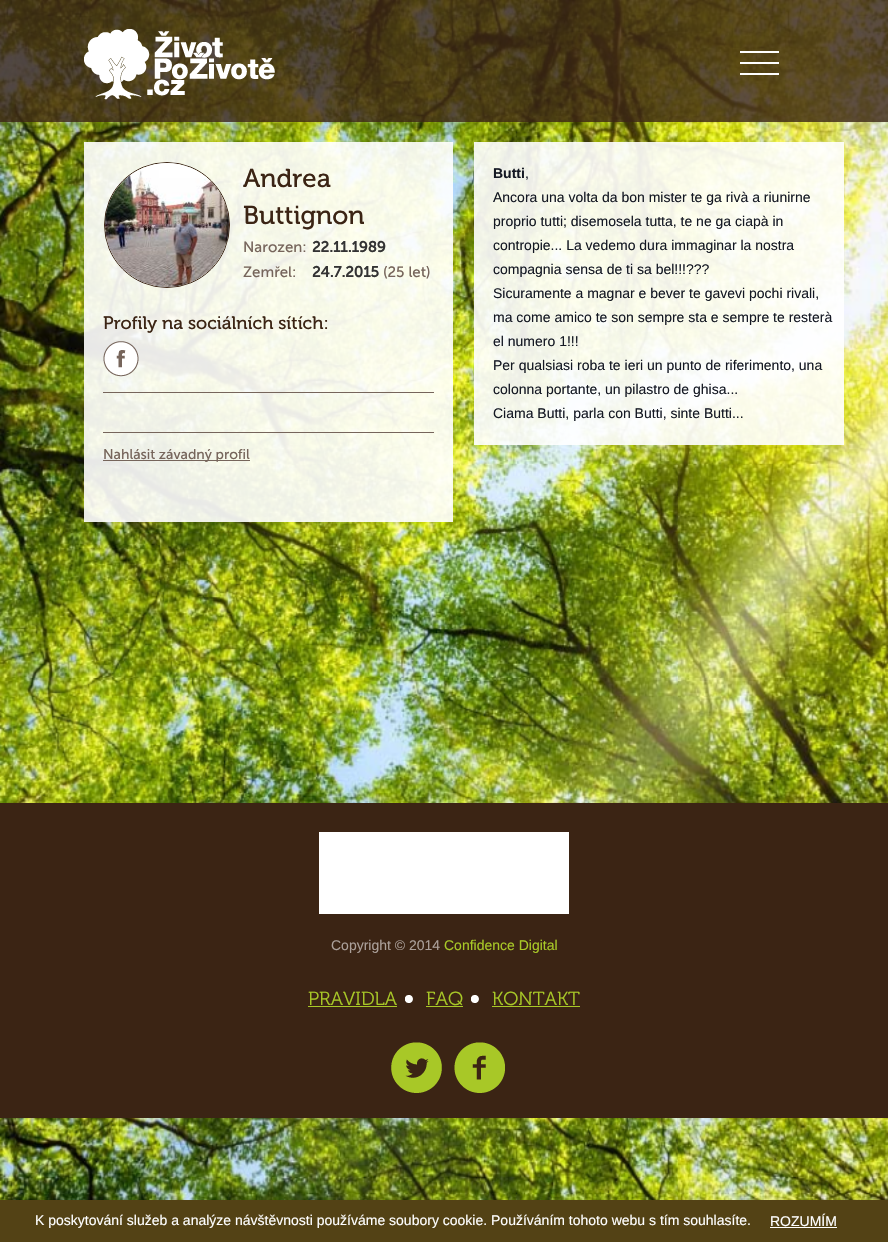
void draw(SkCanvas* canvas) {
  SkPaint paint;
  paint.setAntiAlias(true);
  auto face = [&](const char* family, int weight, float size, bool italic = false) {
    SkFontStyle style(weight, SkFontStyle::kNormal_Width,
      italic ? SkFontStyle::kItalic_Slant : SkFontStyle::kUpright_Slant);
    SkFont result(fontMgr->matchFamilyStyle(family, style), size);
    result.setSubpixel(true);
    return result;
  };
  auto paste = [&](const char* path, float x, float y, float w, float h) {
    auto image = SkImages::DeferredFromEncodedData(SkData::MakeFromFileName(path));
    canvas->drawImageRect(image, SkRect::MakeXYWH(x, y, w, h), SkSamplingOptions());
  };
  canvas->clear(0xffffffff);
  paste("img/3.png", 0, 0, 888, 1200);
  paint.setColor(0xcc3b2414);
  canvas->drawRect(SkRect::MakeXYWH(0, 0, 888, 122), paint);
  paste("img/1.png", 84, 29, 191, 71);
  paste("img/2.png", 740, 51, 39, 24);
  paint.setColor(0xe6ffffff);
  canvas->drawRect(SkRect::MakeXYWH(84, 142, 369, 380), paint);
  paint.setStroke(true);
  paint.setStrokeWidth(1);
  paint.setColor(0xff3b2414);
  canvas->drawCircle(167, 225, 62.5f, paint);
  paste("img/4.png", 105, 163, 124, 124);
  paint.setStroke(false);
  paint.setColor(0xff76655b);
  canvas->drawRect(SkRect::MakeXYWH(103, 392, 331, 1), paint);
  paste("img/5.png", 103, 341, 36, 36);
  {
    const struct { float x, y, w, h; SkColor color; } items[] = {
      {103, 432, 331, 1, 0xff76655b},
      {103, 460, 147, 1, 0xff76655b},
      {474, 142, 370, 303, 0xe6ffffff},
      {0, 803, 888, 315, 0xff3b2414},
      {319, 832, 250, 82, 0xffffffff},
      {308, 1006, 89, 1, 0xffa8c827},
    };
    for (auto [x, y, w, h, color] : items) {
      paint.setColor(color);
      canvas->drawRect(SkRect::MakeXYWH(x, y, w, h), paint);
    }
  }
  paste("img/6.png", 405, 995, 8, 8);
  canvas->drawRect(SkRect::MakeXYWH(426, 1006, 37, 1), paint);
  paste("img/6.png", 471, 995, 8, 8);
  canvas->drawRect(SkRect::MakeXYWH(492, 1006, 88, 1), paint);
  paste("img/7.png", 391, 1042, 51, 51);
  paste("img/8.png", 454, 1042, 51, 51);
  paint.setColor(0xff534215);
  canvas->drawRect(SkRect::MakeXYWH(0, 1200, 888, 42), paint);
  paint.setColor(0xffffffff);
  canvas->drawRect(SkRect::MakeXYWH(770, 1227, 67, 1), paint);
  auto f0 = face("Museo", 400, 26);
  paint.setColor(0xff3b2414);
  canvas->drawString("Andrea", 243, 187, f0, paint);
  canvas->drawString("Buttignon", 243, 224, f0, paint);
  auto f1 = face("Museo Sans", 400, 15);
  paint.setColor(0xff76655b);
  canvas->drawString("Narozen:", 243, 252, f1, paint);
  auto f2 = face("Museo Sans", 700, 15);
  paint.setColor(0xff333333);
  canvas->drawString("22.11.1989", 312, 252, f2, paint);
  paint.setColor(0xff76655b);
  canvas->drawString("Zemřel:", 243, 277, f1, paint);
  paint.setColor(0xff333333);
  canvas->drawString("24.7.2015", 312, 277, f2, paint);
  paint.setColor(0xff76655b);
  canvas->drawString("(25 let)", 383, 277, f1, paint);
  auto f3 = face("Museo", 400, 18);
  paint.setColor(0xff3b2414);
  canvas->drawString("Profily na sociálních sítích:", 103, 329, f3, paint);
  auto f4 = face("Museo Sans", 400, 14);
  paint.setColor(0xff76655b);
  canvas->drawString("Nahlásit závadný profil", 103, 459, f4, paint);
  auto f5 = face("Liberation Sans", 700, 14);
  paint.setColor(0xff141823);
  canvas->drawString("Butti", 493, 178, f5, paint);
  auto f6 = face("Liberation Sans", 400, 14);
  {
    const struct { const char* s; float x, y; } items[] = {
      {",", 525, 178},
      {"Ancora una volta da bon mister te ga rivà a riunirne", 493, 202},
      {"proprio tutti; disemosela tutta, te ne ga ciapà in", 493, 226},
      {"contropie... La vedemo dura immaginar la nostra", 493, 250},
      {"compagnia sensa de ti sa bel!!!?\077?", 493, 274},
      {"Sicuramente a magnar e bever te gavevi pochi rivali,", 493, 298},
      {"ma come amico te son sempre sta e sempre te resterà", 493, 322},
      {"el numero 1!!!", 493, 346},
      {"Per qualsiasi roba te ieri un punto de riferimento, una", 493, 370},
      {"colonna portante, un pilastro de ghisa...", 493, 394},
      {"Ciama Butti, parla con Butti, sinte Butti...", 493, 418},
    };
    for (auto [s, x, y] : items) {
      canvas->drawString(s, x, y, f6, paint);
    }
  }
  paint.setColor(0xffaba09a);
  canvas->drawString("Copyright © 2014", 331, 950, f6, paint);
  paint.setColor(0xffa8c827);
  canvas->drawString("Confidence Digital", 444, 950, f6, paint);
  auto f7 = face("Museo", 300, 19);
  {
    const struct { const char* s; float x, y; } items[] = {
      {"PRAVIDLA", 308, 1005},
      {"FAQ", 426, 1005},
      {"KONTAKT", 492, 1005},
    };
    for (auto [s, x, y] : items) {
      canvas->drawString(s, x, y, f7, paint);
    }
  }
  paint.setColor(0xffffffff);
  canvas->drawString("K poskytování služeb a analýze návštěvnosti používáme soubory cookie. Používáním tohoto webu s tím souhlasíte.", 35, 1225, f6, paint);
  canvas->drawString("ROZUMÍM", 770, 1226, f6, paint);
}
